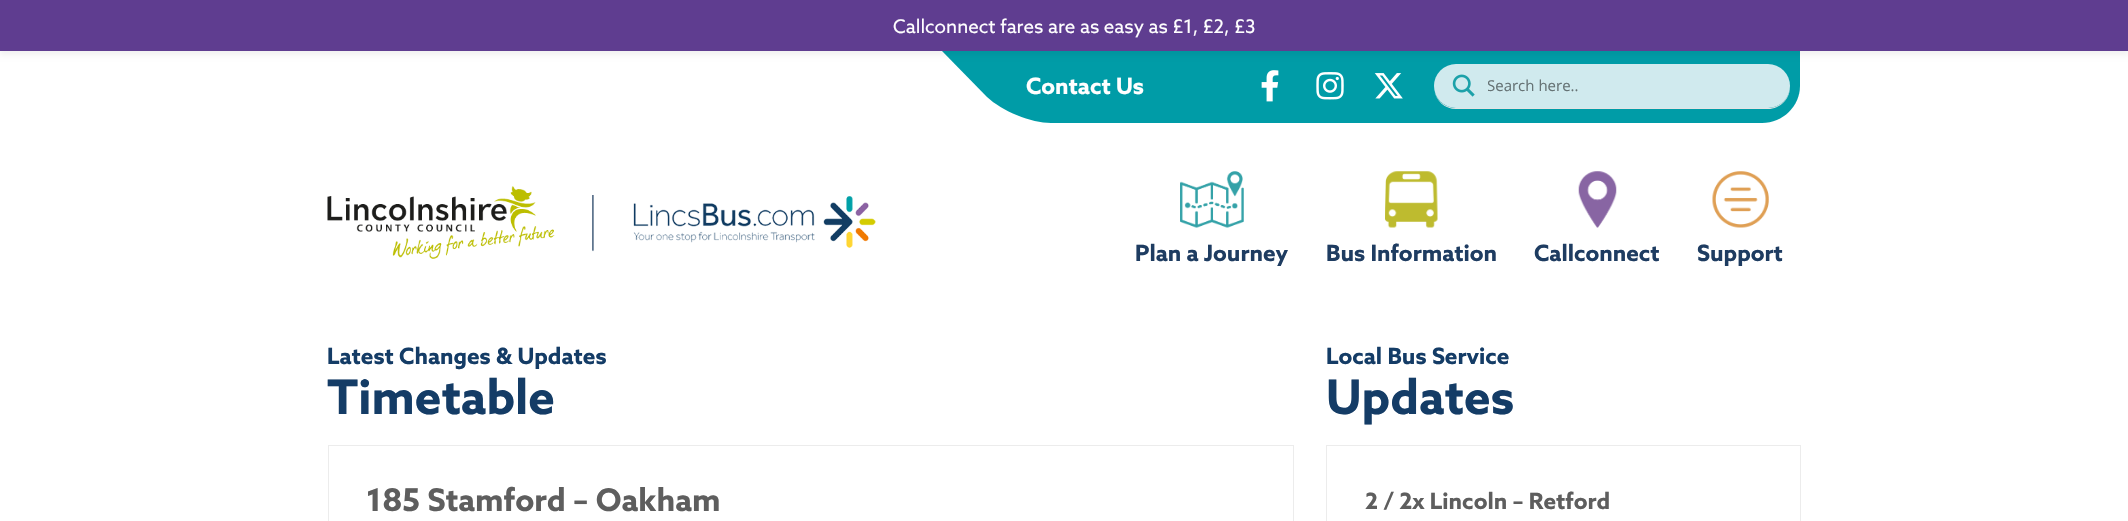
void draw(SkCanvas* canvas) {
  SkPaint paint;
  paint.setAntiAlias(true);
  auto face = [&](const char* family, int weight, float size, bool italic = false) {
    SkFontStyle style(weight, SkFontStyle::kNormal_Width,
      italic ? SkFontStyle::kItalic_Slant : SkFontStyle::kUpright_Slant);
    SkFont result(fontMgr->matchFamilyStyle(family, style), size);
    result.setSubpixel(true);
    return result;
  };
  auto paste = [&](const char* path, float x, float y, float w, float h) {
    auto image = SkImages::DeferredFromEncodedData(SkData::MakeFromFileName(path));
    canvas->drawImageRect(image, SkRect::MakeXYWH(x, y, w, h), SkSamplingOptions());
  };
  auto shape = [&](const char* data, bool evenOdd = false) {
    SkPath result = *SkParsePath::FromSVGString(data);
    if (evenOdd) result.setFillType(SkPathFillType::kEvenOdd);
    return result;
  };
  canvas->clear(0xffffffff);
  paint.setColor(0xff009ca7);
  canvas->drawPath(shape("M1800 51V86C1800 106 1783 123 1762 123H1051C1031 123 1002 111 987 97L942 51"), paint);
  paint.setColor(0x0d000000);
  paint.setMaskFilter(SkMaskFilter::MakeBlur(kNormal_SkBlurStyle, 2.5f));
  canvas->drawRect(SkRect::MakeXYWH(0, 4, 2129, 51), paint);
  paint.setMaskFilter(nullptr);
  paint.setColor(0xff5f3d90);
  canvas->drawRect(SkRect::MakeXYWH(0, 0, 2128, 51), paint);
  paste("img/1.png", 1261, 70, 18, 32);
  paste("img/2.png", 1316, 72, 28, 28);
  paste("img/3.png", 1374, 73, 29, 26);
  paint.setColor(0xffe4e4e4);
  canvas->drawPath(shape("M1434 90C1436 101 1445 109 1456 109H1768C1780 109 1790 99 1790 87V86C1790 98 1780 108 1768 108H1456C1445 108 1436 100 1434 90Z"), paint);
  paint.setColor(0xffd0eaee);
  canvas->drawRoundRect(SkRect::MakeXYWH(1434, 64, 356, 44), 22, 22, paint);
  paste("img/4.png", 1452, 74, 23, 23);
  paste("img/5.png", 327, 186, 549, 73);
  paste("img/6.png", 1180, 171, 64, 57);
  paste("img/7.png", 1385, 171, 53, 57);
  paste("img/8.png", 1578, 171, 39, 57);
  paste("img/9.png", 1712, 171, 57, 57);
  paint.setStroke(true);
  paint.setStrokeWidth(1);
  paint.setColor(0xffececec);
  canvas->drawRect(SkRect::MakeXYWH(328.5f, 445.5f, 965, 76), paint);
  canvas->drawRect(SkRect::MakeXYWH(1326.5f, 445.5f, 474, 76), paint);
  auto f0 = face("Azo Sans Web", 400, 18.75f);
  paint.setStroke(false);
  paint.setColor(0xffffffff);
  canvas->drawString("Callconnect fares are as easy as £1, £2, £3", 893, 33, f0, paint);
  auto f1 = face("Azo Sans Web", 700, 22.5f);
  canvas->drawString("Contact Us", 1026, 94, f1, paint);
  canvas->save();
  canvas->clipRect(SkRect::MakeXYWH(1488, 75, 296, 21));
  auto f2 = face("Open Sans", 400, 15);
  paint.setColor(0xff667375);
  canvas->drawString("Search here..", 1487, 91, f2, paint);
  canvas->restore();
  paint.setColor(0xff1e3c61);
  {
    const struct { const char* s; float x, y; } items[] = {
      {"Plan a Journey", 1135, 261},
      {"Bus Information", 1326, 261},
      {"Callconnect", 1534, 261},
      {"Support", 1697, 261},
    };
    for (auto [s, x, y] : items) {
      canvas->drawString(s, x, y, f1, paint);
    }
  }
  paint.setColor(0xff143c66);
  canvas->drawString("Latest Changes & Updates", 327, 364, f1, paint);
  auto f3 = face("Azo Sans Web", 700, 47.5f);
  canvas->drawString("Timetable", 327, 414, f3, paint);
  auto f4 = face("Azo Sans Web", 700, 31.25f);
  paint.setColor(0xff5e5e5e);
  canvas->drawString("185 Stamford – Oakham", 366, 511, f4, paint);
  paint.setColor(0xff143c66);
  canvas->drawString("Local Bus Service", 1326, 364, f1, paint);
  canvas->drawString("Updates", 1326, 414, f3, paint);
  paint.setColor(0xff5e5e5e);
  canvas->drawString("2 / 2x Lincoln – Retford", 1365, 509, f1, paint);
}
